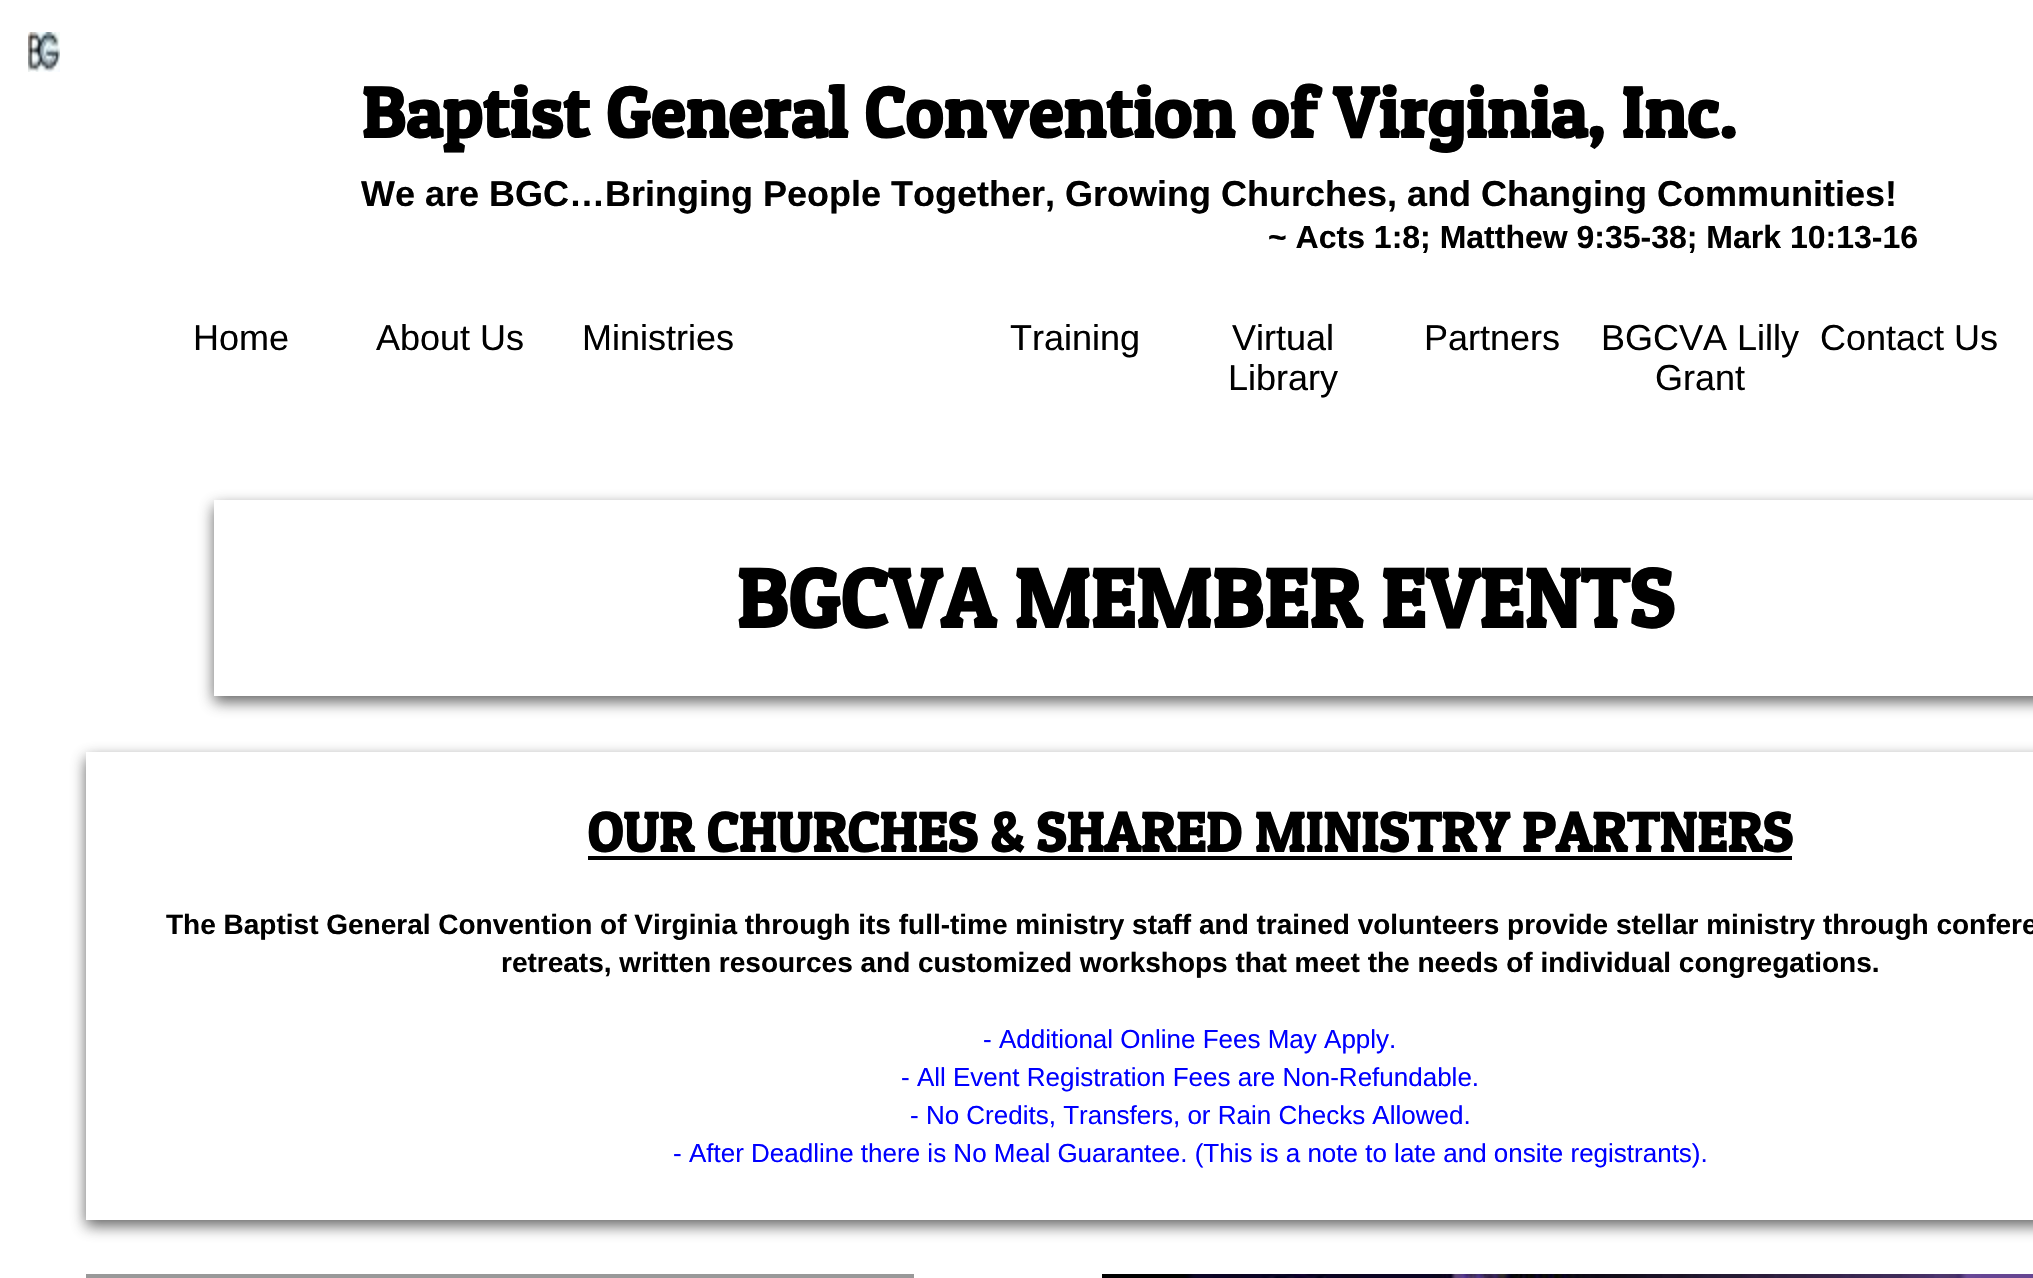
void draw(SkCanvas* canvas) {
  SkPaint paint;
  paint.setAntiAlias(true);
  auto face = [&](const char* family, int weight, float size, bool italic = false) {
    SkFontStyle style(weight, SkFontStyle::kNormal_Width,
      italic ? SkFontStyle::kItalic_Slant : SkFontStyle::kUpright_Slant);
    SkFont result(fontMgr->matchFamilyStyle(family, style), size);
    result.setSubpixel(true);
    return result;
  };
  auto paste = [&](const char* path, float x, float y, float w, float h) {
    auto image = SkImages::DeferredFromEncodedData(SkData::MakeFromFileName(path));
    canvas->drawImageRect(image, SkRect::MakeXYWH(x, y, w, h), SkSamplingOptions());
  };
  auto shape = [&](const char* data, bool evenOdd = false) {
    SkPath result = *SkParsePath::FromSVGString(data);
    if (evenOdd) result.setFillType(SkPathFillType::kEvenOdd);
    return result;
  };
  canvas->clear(0xffffffff);
  paste("img/1.png", 28, 32, 32, 40);
  canvas->save();
  canvas->clipPath(shape("M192 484H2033V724H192ZM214 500H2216V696H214Z", true), true);
  paint.setColor(0xbf323232);
  paint.setMaskFilter(SkMaskFilter::MakeBlur(kNormal_SkBlurStyle, 7));
  canvas->drawRect(SkRect::MakeXYWH(214, 506, 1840, 196), paint);
  paint.setMaskFilter(nullptr);
  canvas->restore();
  canvas->save();
  canvas->clipPath(shape("M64 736H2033V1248H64ZM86 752H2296V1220H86Z", true), true);
  paint.setMaskFilter(SkMaskFilter::MakeBlur(kNormal_SkBlurStyle, 7));
  canvas->drawRect(SkRect::MakeXYWH(86, 758, 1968, 468), paint);
  paint.setMaskFilter(nullptr);
  canvas->restore();
  paint.setColor(0xff000000);
  canvas->drawRect(SkRect::MakeXYWH(588, 856, 1204, 4), paint);
  paint.setColor(0xff999999);
  canvas->drawRect(SkRect::MakeXYWH(86, 1274, 828, 4), paint);
  paste("img/2.png", 1102, 1274, 931, 4);
  auto f0 = face("Patua One", 700, 72);
  paint.setColor(0xff000000);
  canvas->drawString("Baptist General Convention of Virginia, Inc.", 361, 138, f0, paint);
  auto f1 = face("Liberation Sans", 700, 36);
  canvas->drawString("We are BGC…Bringing People Together, Growing Churches, and Changing Communities!", 361, 206, f1, paint);
  auto f2 = face("Liberation Sans", 700, 32);
  canvas->drawString("~ Acts 1:8; Matthew 9:35-38; Mark 10:13-16", 1268, 248, f2, paint);
  auto f3 = face("Liberation Sans", 400, 36);
  {
    const struct { const char* s; float x, y; } items[] = {
      {"Home", 193, 350},
      {"About Us", 376, 350},
      {"Ministries", 582, 350},
      {"Training", 1010, 350},
      {"Virtual", 1232, 350},
      {"Library", 1228, 390},
      {"Partners", 1424, 350},
      {"BGCVA Lilly", 1601, 350},
      {"Grant", 1655, 390},
      {"Contact Us", 1820, 350},
    };
    for (auto [s, x, y] : items) {
      canvas->drawString(s, x, y, f3, paint);
    }
  }
  auto f4 = face("Patua One", 700, 84);
  canvas->drawString("BGCVA MEMBER EVENTS", 736, 628, f4, paint);
  auto f5 = face("Patua One", 700, 56);
  canvas->drawString("OUR CHURCHES & SHARED MINISTRY PARTNERS", 587, 852, f5, paint);
  auto f6 = face("Liberation Sans", 700, 28);
  canvas->drawString("The Baptist General Convention of Virginia through its full-time ministry staff and trained volunteers provide stellar ministry through confere", 166, 934, f6, paint);
  canvas->drawString("retreats, written resources and customized workshops that meet the needs of individual congregations.", 501, 972, f6, paint);
  auto f7 = face("Liberation Sans", 400, 26);
  paint.setColor(0xff0000ff);
  {
    const struct { const char* s; float x, y; } items[] = {
      {"- Additional Online Fees May Apply.", 983, 1048},
      {"- All Event Registration Fees are Non-Refundable.", 901, 1086},
      {"- No Credits, Transfers, or Rain Checks Allowed.", 910, 1124},
      {"- After Deadline there is No Meal Guarantee. (This is a note to late and onsite registrants).", 673, 1162},
    };
    for (auto [s, x, y] : items) {
      canvas->drawString(s, x, y, f7, paint);
    }
  }
}
